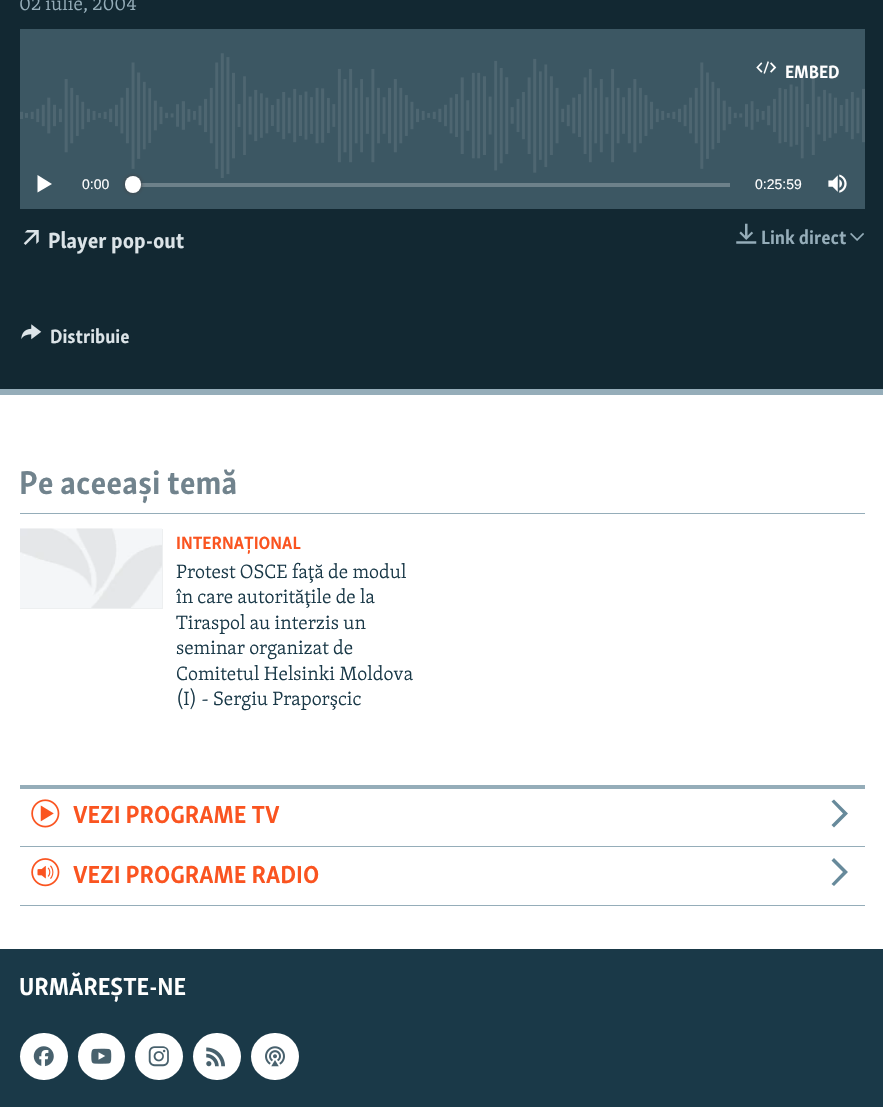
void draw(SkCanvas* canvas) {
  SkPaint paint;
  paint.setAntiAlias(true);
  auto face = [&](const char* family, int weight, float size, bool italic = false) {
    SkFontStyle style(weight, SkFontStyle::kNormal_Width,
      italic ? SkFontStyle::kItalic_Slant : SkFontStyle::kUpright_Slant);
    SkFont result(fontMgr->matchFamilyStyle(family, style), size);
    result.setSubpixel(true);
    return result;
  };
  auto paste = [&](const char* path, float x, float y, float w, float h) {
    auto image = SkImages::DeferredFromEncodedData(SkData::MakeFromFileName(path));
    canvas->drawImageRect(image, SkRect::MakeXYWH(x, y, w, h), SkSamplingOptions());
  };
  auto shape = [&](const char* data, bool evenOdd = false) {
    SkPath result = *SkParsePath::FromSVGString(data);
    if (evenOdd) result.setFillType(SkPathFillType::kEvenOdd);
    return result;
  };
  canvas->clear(0xffffffff);
  {
    const struct { float x, y, w, h; SkColor color; } items[] = {
      {0, 0, 883, 389, 0xff122832},
      {0, 389, 883, 6, 0xff95adb9},
      {20, 29, 845, 180, 0xff3c5763},
    };
    for (auto [x, y, w, h, color] : items) {
      paint.setColor(color);
      canvas->drawRect(SkRect::MakeXYWH(x, y, w, h), paint);
    }
  }
  paste("img/1.png", 20, 53, 845, 125);
  paste("img/2.png", 756, 61, 21, 13);
  paint.setColor(0xffffffff);
  canvas->drawPath(shape("M37.5 192.5L52 184L37.5 175Z"), paint);
  paint.setColor(0xff6d818a);
  canvas->drawRect(SkRect::MakeXYWH(134, 183, 596, 4), paint);
  paint.setColor(0xff414144);
  paint.setMaskFilter(SkMaskFilter::MakeBlur(kNormal_SkBlurStyle, 2));
  canvas->drawRoundRect(SkRect::MakeXYWH(125, 176, 16, 17), 8, 8, paint);
  paint.setMaskFilter(nullptr);
  paint.setColor(0xffffffff);
  canvas->drawRoundRect(SkRect::MakeXYWH(125, 176, 16, 17), 8, 8, paint);
  paste("img/3.png", 828, 174, 19, 19);
  paste("img/4.png", 23, 230, 16, 15);
  paste("img/5.png", 736, 223, 21, 21);
  paste("img/6.png", 850, 232, 14, 9);
  paste("img/7.png", 21, 324, 21, 16);
  paint.setColor(0xff95adb9);
  canvas->drawRect(SkRect::MakeXYWH(20, 513, 845, 1), paint);
  paint.setColor(0xffedeff0);
  canvas->drawRect(SkRect::MakeXYWH(20, 529, 143, 80), paint);
  paste("img/8.png", 20, 528, 142, 80);
  paint.setColor(0xff95adb9);
  canvas->drawRect(SkRect::MakeXYWH(20, 785, 845, 4), paint);
  canvas->drawRect(SkRect::MakeXYWH(20, 846, 845, 1), paint);
  paste("img/9.png", 31, 799, 29, 29);
  paint.setColor(0xff678a9b);
  canvas->drawPath(shape("M834 827.5L848 813.5L834 799.5L831.5 801.5L843 813.5L831.5 825Z"), paint);
  paint.setColor(0xff95adb9);
  canvas->drawRect(SkRect::MakeXYWH(20, 905, 845, 1), paint);
  paste("img/10.png", 31, 858, 29, 29);
  paint.setColor(0xff678a9b);
  canvas->drawPath(shape("M834 886L848 872L834 858L831.5 860.5L843 872L831.5 884Z"), paint);
  paint.setColor(0xff1a3948);
  canvas->drawRect(SkRect::MakeXYWH(0, 949, 883, 158), paint);
  paint.setColor(0xffffffff);
  canvas->drawRoundRect(SkRect::MakeXYWH(20, 1033, 48, 47), 23.5f, 23.5f, paint);
  paste("img/11.png", 33, 1046, 21, 21);
  canvas->drawCircle(101.5f, 1056.5f, 23.5f, paint);
  paste("img/12.png", 91, 1048, 21, 16);
  canvas->drawRoundRect(SkRect::MakeXYWH(135, 1033, 48, 47), 23.5f, 23.5f, paint);
  paste("img/13.png", 148, 1046, 21, 21);
  canvas->drawRoundRect(SkRect::MakeXYWH(193, 1033, 48, 47), 23.5f, 23.5f, paint);
  paste("img/14.png", 206, 1047, 19, 20);
  canvas->drawRoundRect(SkRect::MakeXYWH(251, 1033, 48, 47), 23.5f, 23.5f, paint);
  paste("img/15.png", 265, 1046, 20, 21);
  auto f0 = face("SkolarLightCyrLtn", 300, 19.75f);
  paint.setColor(0xff95adb9);
  canvas->drawString("02 iulie, 2004", 19, 10, f0, paint);
  auto f1 = face("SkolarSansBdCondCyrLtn", 700, 18.25f);
  paint.setColor(0xffffffff);
  canvas->drawString("EMBED", 785, 78, f1, paint);
  auto f2 = face("Liberation Sans", 400, 14);
  canvas->drawString("0:00", 82, 189, f2, paint);
  canvas->drawString("0:25:59", 755, 189, f2, paint);
  auto f3 = face("SkolarSansBdCondCyrLtn", 700, 22.5f);
  paint.setColor(0xffdce4e8);
  canvas->drawString("Player pop-out", 48, 248, f3, paint);
  auto f4 = face("SkolarSansBdCondCyrLtn", 700, 19.75f);
  paint.setColor(0xff95adb9);
  canvas->drawString("Link direct", 761, 244, f4, paint);
  paint.setColor(0xffdce4e8);
  canvas->drawString("Distribuie", 50, 343, f4, paint);
  auto f5 = face("SkolarSansBdCondCyrLtn", 700, 33.75f);
  paint.setColor(0xff71838d);
  canvas->drawString("Pe aceeași temă", 19, 494, f5, paint);
  paint.setColor(0xfffa5420);
  canvas->drawString("INTERNAȚIONAL", 176, 549, f1, paint);
  paint.setColor(0xff1a3948);
  {
    const struct { const char* s; float x, y; } items[] = {
      {"Protest OSCE faţă de modul", 176, 578},
      {"în care autorităţile de la", 176, 603},
      {"Tiraspol au interzis un", 176, 629},
      {"seminar organizat de", 176, 654},
      {"Comitetul Helsinki Moldova", 176, 680},
      {"(I) - Sergiu Praporşcic", 176, 705},
    };
    for (auto [s, x, y] : items) {
      canvas->drawString(s, x, y, f0, paint);
    }
  }
  auto f6 = face("SkolarSansBdCondCyrLtn", 700, 25.25f);
  paint.setColor(0xfffa5420);
  canvas->drawString("VEZI PROGRAME TV", 73, 823, f6, paint);
  canvas->drawString("VEZI PROGRAME RADIO", 73, 883, f6, paint);
  paint.setColor(0xffffffff);
  canvas->drawString("URMĂREȘTE-NE", 19, 995, f6, paint);
}
